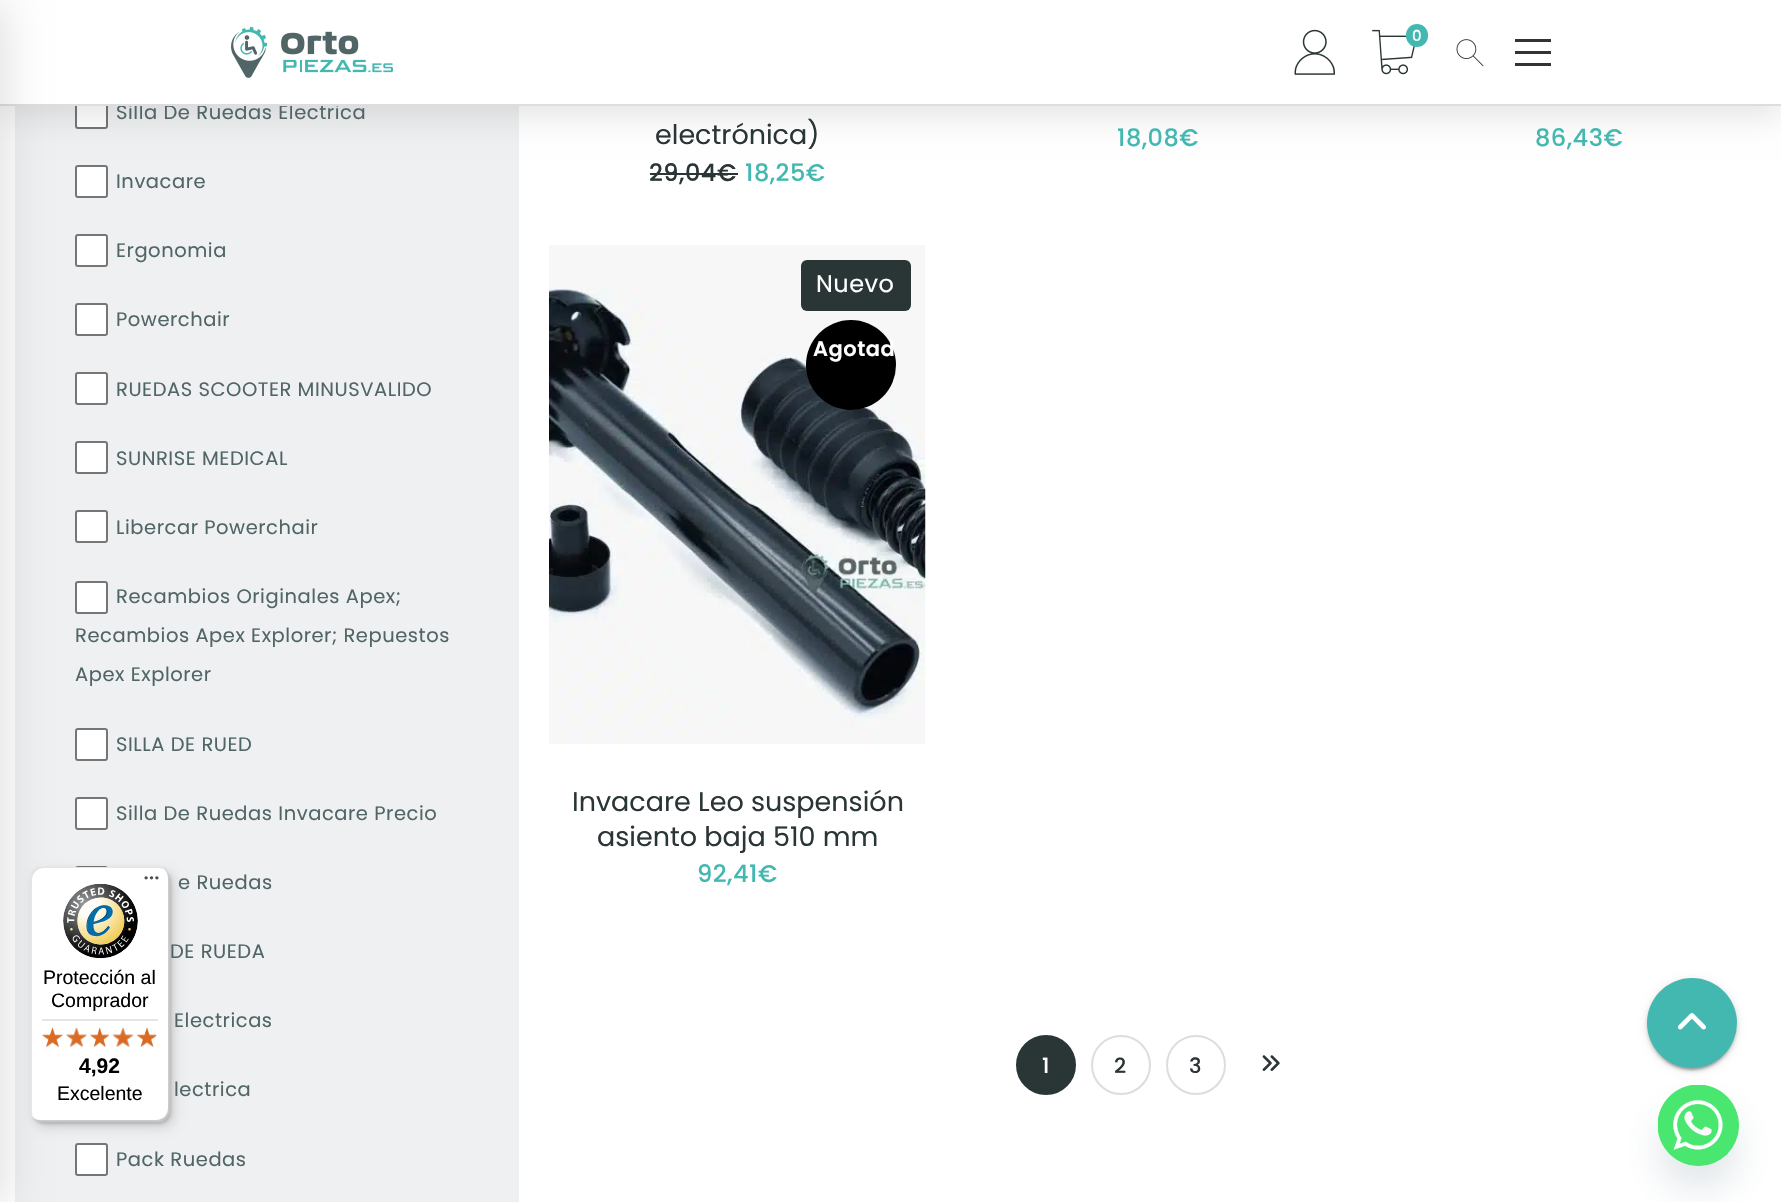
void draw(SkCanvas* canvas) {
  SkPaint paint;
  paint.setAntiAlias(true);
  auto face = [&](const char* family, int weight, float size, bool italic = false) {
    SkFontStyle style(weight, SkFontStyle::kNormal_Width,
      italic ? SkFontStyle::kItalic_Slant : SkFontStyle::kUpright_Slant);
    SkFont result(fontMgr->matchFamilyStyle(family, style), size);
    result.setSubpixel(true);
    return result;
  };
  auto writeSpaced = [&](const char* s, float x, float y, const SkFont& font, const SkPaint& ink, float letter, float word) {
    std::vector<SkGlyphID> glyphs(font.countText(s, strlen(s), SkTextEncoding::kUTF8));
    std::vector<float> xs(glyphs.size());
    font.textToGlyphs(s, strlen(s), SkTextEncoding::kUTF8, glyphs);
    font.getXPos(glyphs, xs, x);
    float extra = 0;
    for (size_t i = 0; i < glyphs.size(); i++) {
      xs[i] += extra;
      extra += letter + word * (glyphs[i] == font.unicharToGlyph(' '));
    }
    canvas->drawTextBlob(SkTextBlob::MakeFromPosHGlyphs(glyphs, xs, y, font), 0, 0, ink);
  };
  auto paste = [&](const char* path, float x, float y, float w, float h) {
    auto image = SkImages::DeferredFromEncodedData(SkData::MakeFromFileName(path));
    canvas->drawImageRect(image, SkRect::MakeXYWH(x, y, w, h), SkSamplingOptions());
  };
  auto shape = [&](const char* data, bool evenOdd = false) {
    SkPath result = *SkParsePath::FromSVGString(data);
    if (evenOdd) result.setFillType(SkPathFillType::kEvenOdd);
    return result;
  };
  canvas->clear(0xffffffff);
  paint.setColor(0xffeef0f1);
  canvas->drawRect(SkRect::MakeXYWH(15, 106, 504, 1096), paint);
  paint.setColor(0xffffffff);
  canvas->drawRoundRect(SkRect::MakeXYWH(76, 97, 31, 31), 2, 2, paint);
  paint.setStroke(true);
  paint.setStrokeWidth(2);
  paint.setColor(0xff767676);
  canvas->drawRoundRect(SkRect::MakeXYWH(76, 97, 31, 31), 2, 2, paint);
  paint.setStroke(false);
  paint.setColor(0x1a000000);
  paint.setMaskFilter(SkMaskFilter::MakeBlur(kNormal_SkBlurStyle, 15));
  canvas->drawRect(SkRect::MakeXYWH(0, 12, 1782, 105), paint);
  paint.setMaskFilter(nullptr);
  paint.setColor(0xffffffff);
  canvas->drawRect(SkRect::MakeXYWH(0, 0, 1781, 104), paint);
  paste("img/1.png", 231, 27, 162, 51);
  paste("img/2.png", 1294, 29, 41, 46);
  paste("img/3.png", 1372, 29, 43, 46);
  paint.setColor(0xff43b8b1);
  canvas->drawRoundRect(SkRect::MakeXYWH(1406, 24, 22, 23), 11, 11, paint);
  paste("img/4.png", 1456, 39, 28, 28);
  {
    const struct { float x, y, w, h; SkColor color; } items[] = {
      {1515, 51, 36, 3, 0xff333333},
      {1515, 39, 36, 3, 0xff333333},
      {1515, 63, 36, 3, 0xff333333},
    };
    for (auto [x, y, w, h, color] : items) {
      paint.setColor(color);
      canvas->drawRect(SkRect::MakeXYWH(x, y, w, h), paint);
    }
  }
  paint.setColor(0xffffffff);
  canvas->drawRoundRect(SkRect::MakeXYWH(76, 166, 31, 31), 2, 2, paint);
  paint.setStroke(true);
  paint.setColor(0xff767676);
  canvas->drawRoundRect(SkRect::MakeXYWH(76, 166, 31, 31), 2, 2, paint);
  paint.setStroke(false);
  paint.setColor(0xffffffff);
  canvas->drawRoundRect(SkRect::MakeXYWH(76, 235, 31, 31), 2, 2, paint);
  paint.setStroke(true);
  paint.setColor(0xff767676);
  canvas->drawRoundRect(SkRect::MakeXYWH(76, 235, 31, 31), 2, 2, paint);
  paint.setStroke(false);
  paint.setColor(0xffffffff);
  canvas->drawRoundRect(SkRect::MakeXYWH(76, 304, 31, 31), 2, 2, paint);
  paint.setStroke(true);
  paint.setColor(0xff767676);
  canvas->drawRoundRect(SkRect::MakeXYWH(76, 304, 31, 31), 2, 2, paint);
  paint.setStroke(false);
  paint.setColor(0xffffffff);
  canvas->drawRoundRect(SkRect::MakeXYWH(76, 373, 31, 31), 2, 2, paint);
  paint.setStroke(true);
  paint.setColor(0xff767676);
  canvas->drawRoundRect(SkRect::MakeXYWH(76, 373, 31, 31), 2, 2, paint);
  paint.setStroke(false);
  paint.setColor(0xffffffff);
  canvas->drawRoundRect(SkRect::MakeXYWH(76, 442, 31, 31), 2, 2, paint);
  paint.setStroke(true);
  paint.setColor(0xff767676);
  canvas->drawRoundRect(SkRect::MakeXYWH(76, 442, 31, 31), 2, 2, paint);
  paint.setStroke(false);
  paint.setColor(0xffffffff);
  canvas->drawRoundRect(SkRect::MakeXYWH(76, 511, 31, 31), 2, 2, paint);
  paint.setStroke(true);
  paint.setColor(0xff767676);
  canvas->drawRoundRect(SkRect::MakeXYWH(76, 511, 31, 31), 2, 2, paint);
  paint.setStroke(false);
  paint.setColor(0xffffffff);
  canvas->drawRoundRect(SkRect::MakeXYWH(76, 582, 31, 31), 2, 2, paint);
  paint.setStroke(true);
  paint.setColor(0xff767676);
  canvas->drawRoundRect(SkRect::MakeXYWH(76, 582, 31, 31), 2, 2, paint);
  paint.setStroke(false);
  paint.setColor(0xffffffff);
  canvas->drawRoundRect(SkRect::MakeXYWH(76, 729, 31, 31), 2, 2, paint);
  paint.setStroke(true);
  paint.setColor(0xff767676);
  canvas->drawRoundRect(SkRect::MakeXYWH(76, 729, 31, 31), 2, 2, paint);
  paint.setStroke(false);
  paint.setColor(0xffffffff);
  canvas->drawRoundRect(SkRect::MakeXYWH(76, 798, 31, 31), 2, 2, paint);
  paint.setStroke(true);
  paint.setColor(0xff767676);
  canvas->drawRoundRect(SkRect::MakeXYWH(76, 798, 31, 31), 2, 2, paint);
  canvas->drawRoundRect(SkRect::MakeXYWH(76, 867, 31, 31), 2, 2, paint);
  paint.setStroke(false);
  paint.setColor(0xffffffff);
  canvas->drawRoundRect(SkRect::MakeXYWH(76, 1144, 31, 31), 2, 2, paint);
  paint.setStroke(true);
  paint.setColor(0xff767676);
  canvas->drawRoundRect(SkRect::MakeXYWH(76, 1144, 31, 31), 2, 2, paint);
  paint.setStroke(false);
  paint.setColor(0xff2a3536);
  canvas->drawRect(SkRect::MakeXYWH(650, 173, 88, 2), paint);
  paste("img/5.png", 549, 245, 377, 499);
  canvas->drawRoundRect(SkRect::MakeXYWH(801, 260, 110, 51), 6, 6, paint);
  paint.setColor(0xff000000);
  canvas->drawCircle(851, 365, 45, paint);
  paint.setColor(0xff2a3536);
  canvas->drawCircle(1046, 1065, 29, paint);
  paint.setStroke(true);
  canvas->drawCircle(1046, 1065, 29, paint);
  paint.setColor(0xffdddddd);
  canvas->drawCircle(1121, 1065, 29, paint);
  canvas->drawCircle(1196, 1065, 29, paint);
  paste("img/6.png", 1262, 1055, 18, 16);
  paint.setStroke(false);
  paint.setColor(0x33000000);
  paint.setMaskFilter(SkMaskFilter::MakeBlur(kNormal_SkBlurStyle, 1));
  canvas->drawRoundRect(SkRect::MakeXYWH(1650, 986, 84, 84), 42, 42, paint);
  paint.setMaskFilter(nullptr);
  paint.setColor(0x1f000000);
  paint.setMaskFilter(SkMaskFilter::MakeBlur(kNormal_SkBlurStyle, 4));
  canvas->drawRoundRect(SkRect::MakeXYWH(1647, 980, 90, 90), 45, 45, paint);
  paint.setMaskFilter(nullptr);
  paint.setColor(0x24000000);
  paint.setMaskFilter(SkMaskFilter::MakeBlur(kNormal_SkBlurStyle, 1.5f));
  canvas->drawRoundRect(SkRect::MakeXYWH(1647, 981, 90, 90), 45, 45, paint);
  paint.setMaskFilter(nullptr);
  paint.setColor(0xff43b8b1);
  canvas->drawCircle(1692, 1023, 45, paint);
  paste("img/7.png", 1677, 1013, 29, 17);
  paint.setColor(0x26000000);
  paint.setMaskFilter(SkMaskFilter::MakeBlur(kNormal_SkBlurStyle, 6));
  canvas->drawRoundRect(SkRect::MakeXYWH(35, 872, 139, 255), 12, 12, paint);
  paint.setMaskFilter(nullptr);
  paint.setMaskFilter(SkMaskFilter::MakeBlur(kNormal_SkBlurStyle, 1.5f));
  canvas->drawRoundRect(SkRect::MakeXYWH(32, 869, 139, 255), 12, 12, paint);
  paint.setMaskFilter(nullptr);
  paint.setColor(0x2949687e);
  paint.setMaskFilter(SkMaskFilter::MakeBlur(kNormal_SkBlurStyle, 18));
  canvas->drawRoundRect(SkRect::MakeXYWH(1658, 1109, 81, 81), 40.5f, 40.5f, paint);
  paint.setMaskFilter(nullptr);
  paint.setColor(0xff49e670);
  canvas->drawCircle(1698.5f, 1125.5f, 40.5f, paint);
  paste("img/20.png", 1658, 1085, 81, 81);
  auto f0 = face("Poppins", 500, 15);
  paint.setColor(0xffffffff);
  writeSpaced("0", 1412, 41, f0, paint, 0.5f, 0);
  auto f1 = face("Poppins", 400, 19.5f);
  paint.setColor(0xff516567);
  writeSpaced("Silla De Ruedas Electrica", 116, 119, f1, paint, 0.55f, 0);
  paint.setColor(0xffdddddd);
  canvas->drawRect(SkRect::MakeXYWH(0, 104, 1781, 2), paint);
  paint.setColor(0x1f000000);
  paint.setMaskFilter(SkMaskFilter::MakeBlur(kNormal_SkBlurStyle, 22));
  canvas->drawRect(SkRect::MakeXYWH(-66, 2, 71, 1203), paint);
  paint.setMaskFilter(nullptr);
  paint.setColor(0xff516567);
  {
    const struct { const char* s; float x, y; } items[] = {
      {"Invacare", 116, 188},
      {"Ergonomia", 116, 257},
      {"Powerchair", 116, 326},
      {"RUEDAS SCOOTER MINUSVALIDO", 116, 396},
      {"SUNRISE MEDICAL", 116, 465},
      {"Libercar Powerchair", 116, 534},
      {"Recambios Originales Apex;", 116, 603},
      {"Recambios Apex Explorer; Repuestos", 75, 642},
      {"Apex Explorer", 75, 681},
      {"SILLA DE RUED", 116, 751},
      {"Silla De Ruedas Invacare Precio", 116, 820},
      {"e Ruedas", 178, 889},
      {"DE RUEDA", 170, 958},
      {"Electricas", 174, 1027},
      {"lectrica", 174, 1096},
      {"Pack Ruedas", 116, 1166},
    };
    for (auto [s, x, y] : items) {
      writeSpaced(s, x, y, f1, paint, 0.55f, 0);
    }
  }
  auto f2 = face("Poppins", 400, 27);
  paint.setColor(0xff2a3536);
  canvas->drawString("electrónica)", 655, 144, f2, paint);
  auto f3 = face("Poppins", 500, 24);
  writeSpaced("29,04€", 649, 181, f3, paint, 0.5f, 0);
  paint.setColor(0xff43b8b1);
  {
    const struct { const char* s; float x, y; } items[] = {
      {"18,25€", 745, 181},
      {"18,08€", 1117, 146},
      {"86,43€", 1535, 146},
    };
    for (auto [s, x, y] : items) {
      writeSpaced(s, x, y, f3, paint, 0.5f, 0);
    }
  }
  auto f4 = face("Poppins", 400, 24);
  paint.setColor(0xffffffff);
  writeSpaced("Nuevo", 816, 292, f4, paint, 0.5f, 0);
  auto f5 = face("Poppins", 600, 21);
  writeSpaced("Agotad", 813, 356, f5, paint, 0.5f, 0);
  paint.setColor(0xff2a3536);
  canvas->drawString("Invacare Leo suspensión", 572, 811, f2, paint);
  canvas->drawString("asiento baja 510 mm", 597, 846, f2, paint);
  paint.setColor(0xff43b8b1);
  writeSpaced("92,41€", 697, 882, f3, paint, 0.5f, 0);
  auto f6 = face("Poppins", 500, 21);
  paint.setColor(0xffffffff);
  writeSpaced("1", 1042, 1073, f6, paint, 0.5f, 0);
  paint.setColor(0xff2a3536);
  writeSpaced("2", 1114, 1073, f6, paint, 0.5f, 0);
  writeSpaced("3", 1189, 1073, f6, paint, 0.5f, 0);
  paint.setColor(0xffffffff);
  canvas->drawRoundRect(SkRect::MakeXYWH(30, 867, 140, 255), 12, 12, paint);
  paint.setColor(0x1a000000);
  canvas->drawPath(shape("M44 868H159C162 868 165 869 167 871C165 869 162 867 158 867H42C35 867 30 872 30 879V1110C30 1114 32 1117 35 1120C33 1117 32 1115 32 1112V880C32 874 37 868 44 868Z"), paint);
  paint.setColor(0x33000000);
  canvas->drawPath(shape("M32 1117C35 1120 38 1122 42 1122H158C165 1122 170 1117 170 1110V879C170 874 167 870 163 868C166 870 168 874 168 878V1108C168 1115 163 1120 156 1120H40C37 1120 35 1119 32 1117Z"), paint);
  paint.setColor(0x33323232);
  canvas->drawPath(shape("M34 1119C36 1121 39 1122 42 1122H158C165 1122 170 1117 170 1110V879C170 875 168 872 166 870C168 872 169 875 169 878V1109C169 1116 163 1121 157 1121H41C38 1121 36 1120 34 1119Z"), paint);
  paint.setColor(0x4dffffff);
  canvas->drawPath(shape("M33 1118C35 1120 38 1122 42 1122H158C165 1122 170 1117 170 1110V879C170 874 168 871 164 869C167 871 169 874 169 878V1109C169 1116 163 1121 157 1121H41C38 1121 35 1120 33 1118Z"), paint);
  paste("img/8.png", 144, 876, 15, 4);
  paste("img/9.png", 63, 884, 75, 75);
  auto f7 = face("Liberation Sans", 400, 19.5f);
  paint.setColor(0xff000000);
  canvas->drawString("Protección al", 43, 984, f7, paint);
  canvas->drawString("Comprador", 51, 1007, f7, paint);
  paint.setColor(0xffe5e5e5);
  canvas->drawRect(SkRect::MakeXYWH(42, 1019, 116, 2), paint);
  paste("img/15.png", 42, 1028, 21, 19);
  paste("img/10.png", 42, 1027, 21, 20);
  paste("img/16.png", 66, 1028, 21, 19);
  paste("img/11.png", 66, 1027, 21, 20);
  paste("img/17.png", 90, 1028, 19, 19);
  paste("img/12.png", 90, 1027, 19, 20);
  paste("img/18.png", 113, 1028, 20, 19);
  paste("img/13.png", 112, 1027, 22, 20);
  paste("img/19.png", 137, 1028, 20, 19);
  paste("img/14.png", 137, 1027, 19, 20);
  auto f8 = face("Liberation Sans", 700, 21);
  paint.setColor(0xff000000);
  canvas->drawString("4,92", 79, 1073, f8, paint);
  canvas->drawString("Excelente", 57, 1100, f7, paint);
}
